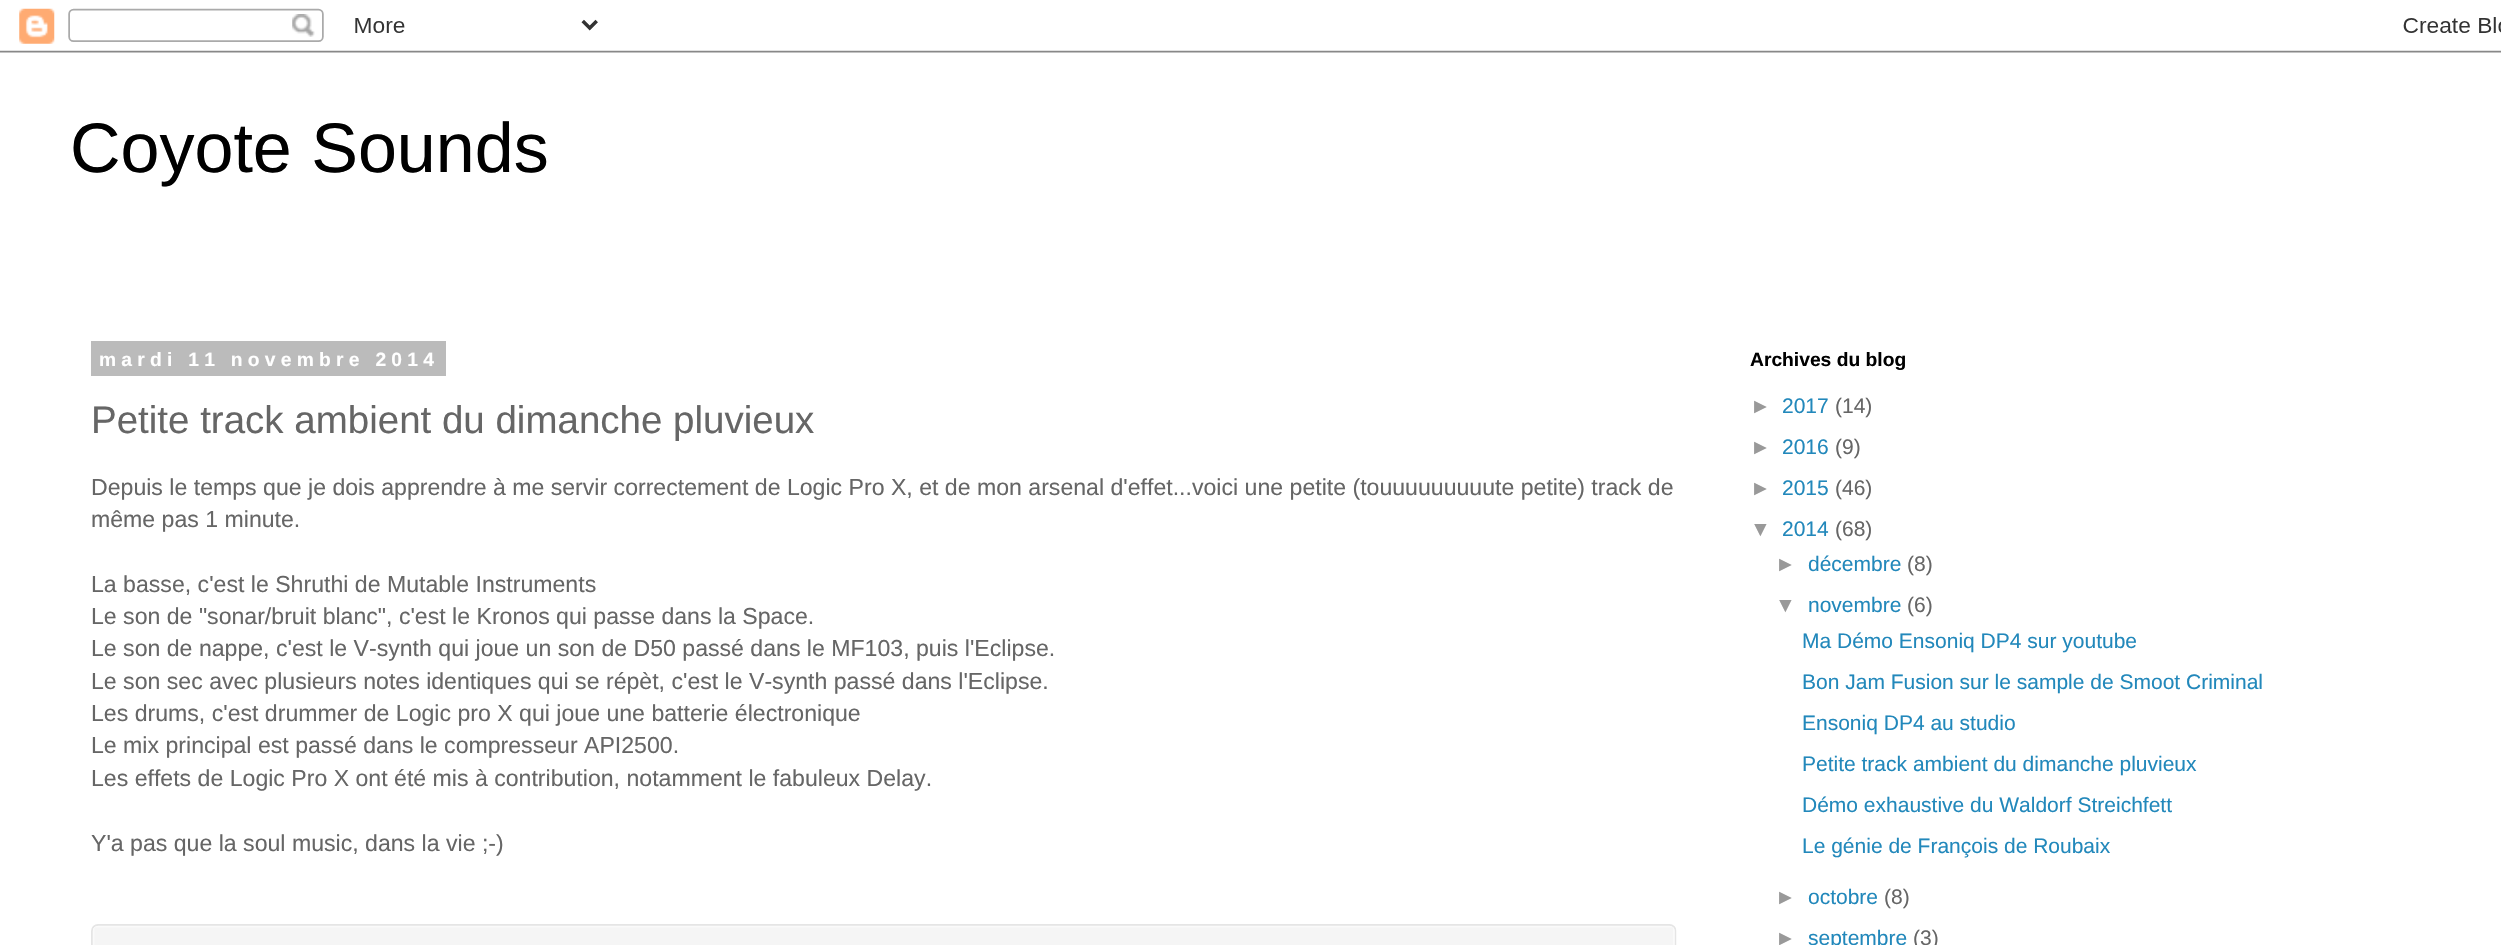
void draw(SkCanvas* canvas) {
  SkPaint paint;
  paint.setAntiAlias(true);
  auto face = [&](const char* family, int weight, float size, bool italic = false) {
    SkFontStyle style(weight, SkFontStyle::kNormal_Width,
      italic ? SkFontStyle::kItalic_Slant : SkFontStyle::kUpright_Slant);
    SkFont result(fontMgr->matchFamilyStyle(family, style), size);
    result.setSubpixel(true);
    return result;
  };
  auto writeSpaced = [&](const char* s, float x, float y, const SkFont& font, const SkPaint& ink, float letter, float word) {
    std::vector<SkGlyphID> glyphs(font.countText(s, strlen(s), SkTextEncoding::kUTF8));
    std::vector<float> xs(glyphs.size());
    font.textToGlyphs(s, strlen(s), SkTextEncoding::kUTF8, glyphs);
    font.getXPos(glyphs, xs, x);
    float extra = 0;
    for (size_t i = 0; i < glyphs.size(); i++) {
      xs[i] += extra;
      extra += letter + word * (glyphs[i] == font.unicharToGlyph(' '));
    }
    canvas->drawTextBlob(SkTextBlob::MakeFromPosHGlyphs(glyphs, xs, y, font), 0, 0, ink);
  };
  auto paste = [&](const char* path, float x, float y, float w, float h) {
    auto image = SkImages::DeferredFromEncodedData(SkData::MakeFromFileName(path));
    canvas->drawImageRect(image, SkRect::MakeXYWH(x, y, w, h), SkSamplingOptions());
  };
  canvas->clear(0xffffffff);
  paste("img/1.png", 0, 8, 2501, 45);
  paint.setColor(0xffbbbbbb);
  canvas->drawRect(SkRect::MakeXYWH(91, 341, 355, 35), paint);
  paste("img/2.png", 91, 924, 1586, 21);
  auto f0 = face("Liberation Sans", 400, 70);
  paint.setColor(0xff000000);
  canvas->drawString("Coyote Sounds", 70, 172, f0, paint);
  auto f1 = face("Liberation Sans", 700, 19.25f);
  paint.setColor(0xffffffff);
  writeSpaced("mardi 11 novembre 2014", 99, 366, f1, paint, 5.25f, 0);
  auto f2 = face("Liberation Sans", 400, 38.5f);
  paint.setColor(0xff666666);
  canvas->drawString("Petite track ambient du dimanche pluvieux", 91, 433, f2, paint);
  auto f3 = face("Liberation Sans", 400, 23.1f);
  {
    const struct { const char* s; float x, y; } items[] = {
      {"Depuis le temps que je dois apprendre à me servir correctement de Logic Pro X, et de mon arsenal d'effet...voici une petite (touuuuuuuuute petite) track de", 91, 495},
      {"même pas 1 minute.", 91, 527},
      {"La basse, c'est le Shruthi de Mutable Instruments", 91, 592},
      {"Le son de \"sonar/bruit blanc\", c'est le Kronos qui passe dans la Space.", 91, 624},
      {"Le son de nappe, c'est le V-synth qui joue un son de D50 passé dans le MF103, puis l'Eclipse.", 91, 656},
      {"Le son sec avec plusieurs notes identiques qui se répèt, c'est le V-synth passé dans l'Eclipse.", 91, 689},
      {"Les drums, c'est drummer de Logic pro X qui joue une batterie électronique", 91, 721},
      {"Le mix principal est passé dans le compresseur API2500.", 91, 753},
      {"Les effets de Logic Pro X ont été mis à contribution, notamment le fabuleux Delay.", 91, 786},
      {"Y'a pas que la soul music, dans la vie ;-)", 91, 851},
    };
    for (auto [s, x, y] : items) {
      canvas->drawString(s, x, y, f3, paint);
    }
  }
  paint.setColor(0xff000000);
  canvas->drawString("Archives du blog", 1750, 366, f1, paint);
  auto f4 = face("Liberation Sans", 400, 21);
  paint.setColor(0xff999999);
  canvas->drawString("►", 1750, 413, f4, paint);
  paint.setColor(0xff2288bb);
  canvas->drawString("2017", 1782, 413, f4, paint);
  paint.setColor(0xff666666);
  canvas->drawString("(14)", 1835, 413, f4, paint);
  paint.setColor(0xff999999);
  canvas->drawString("►", 1750, 454, f4, paint);
  paint.setColor(0xff2288bb);
  canvas->drawString("2016", 1782, 454, f4, paint);
  paint.setColor(0xff666666);
  canvas->drawString("(9)", 1835, 454, f4, paint);
  paint.setColor(0xff999999);
  canvas->drawString("►", 1750, 495, f4, paint);
  paint.setColor(0xff2288bb);
  canvas->drawString("2015", 1782, 495, f4, paint);
  paint.setColor(0xff666666);
  canvas->drawString("(46)", 1835, 495, f4, paint);
  paint.setColor(0xff999999);
  canvas->drawString("▼", 1750, 536, f4, paint);
  paint.setColor(0xff2288bb);
  canvas->drawString("2014", 1782, 536, f4, paint);
  paint.setColor(0xff666666);
  canvas->drawString("(68)", 1835, 536, f4, paint);
  paint.setColor(0xff999999);
  canvas->drawString("►", 1775, 571, f4, paint);
  paint.setColor(0xff2288bb);
  canvas->drawString("décembre", 1808, 571, f4, paint);
  paint.setColor(0xff666666);
  canvas->drawString("(8)", 1907, 571, f4, paint);
  paint.setColor(0xff999999);
  canvas->drawString("▼", 1775, 612, f4, paint);
  paint.setColor(0xff2288bb);
  canvas->drawString("novembre", 1808, 612, f4, paint);
  paint.setColor(0xff666666);
  canvas->drawString("(6)", 1907, 612, f4, paint);
  paint.setColor(0xff2288bb);
  {
    const struct { const char* s; float x, y; } items[] = {
      {"Ma Démo Ensoniq DP4 sur youtube", 1802, 648},
      {"Bon Jam Fusion sur le sample de Smoot Criminal", 1802, 689},
      {"Ensoniq DP4 au studio", 1802, 730},
      {"Petite track ambient du dimanche pluvieux", 1802, 771},
      {"Démo exhaustive du Waldorf Streichfett", 1802, 812},
      {"Le génie de François de Roubaix", 1802, 853},
    };
    for (auto [s, x, y] : items) {
      canvas->drawString(s, x, y, f4, paint);
    }
  }
  paint.setColor(0xff999999);
  canvas->drawString("►", 1775, 904, f4, paint);
  paint.setColor(0xff2288bb);
  canvas->drawString("octobre", 1808, 904, f4, paint);
  paint.setColor(0xff666666);
  canvas->drawString("(8)", 1884, 904, f4, paint);
  paint.setColor(0xff999999);
  canvas->drawString("►", 1775, 945, f4, paint);
  paint.setColor(0xff2288bb);
  canvas->drawString("septembre", 1808, 945, f4, paint);
  paint.setColor(0xff666666);
  canvas->drawString("(3)", 1913, 945, f4, paint);
}
